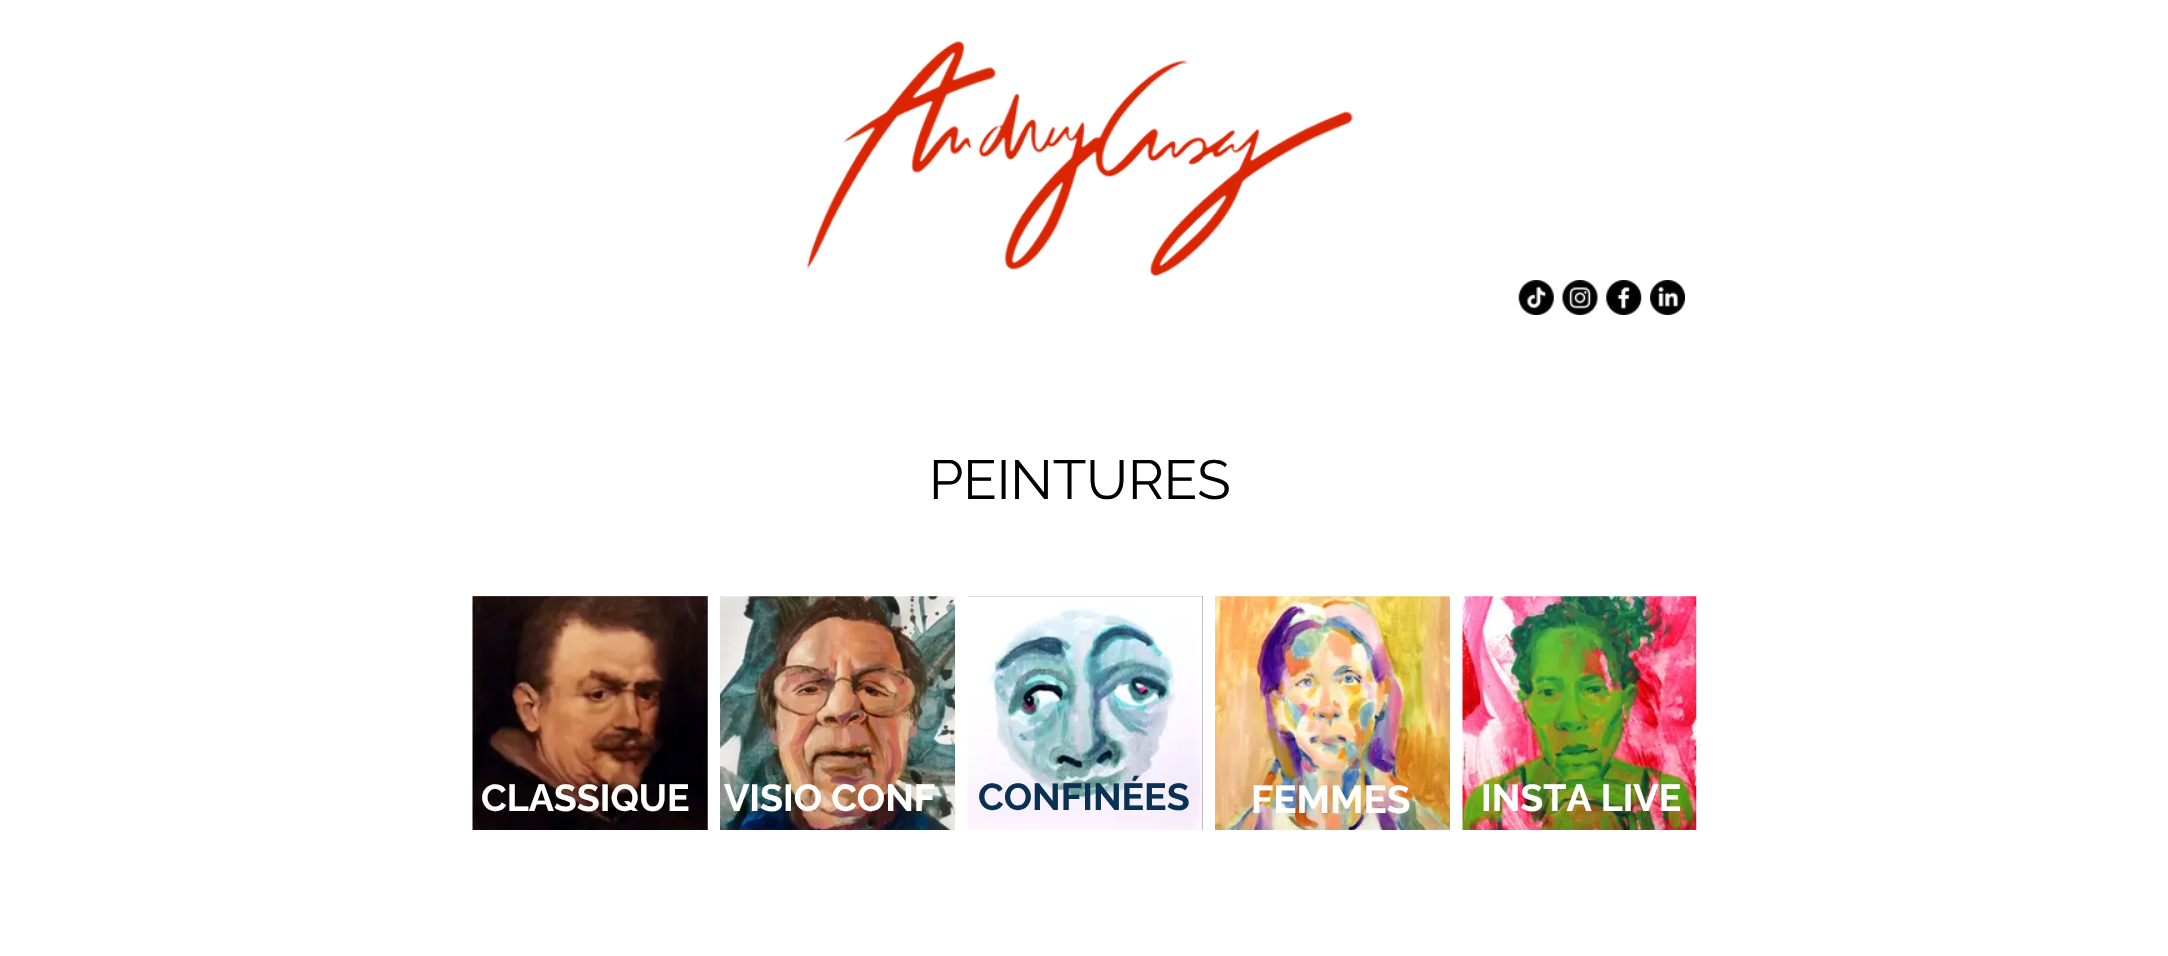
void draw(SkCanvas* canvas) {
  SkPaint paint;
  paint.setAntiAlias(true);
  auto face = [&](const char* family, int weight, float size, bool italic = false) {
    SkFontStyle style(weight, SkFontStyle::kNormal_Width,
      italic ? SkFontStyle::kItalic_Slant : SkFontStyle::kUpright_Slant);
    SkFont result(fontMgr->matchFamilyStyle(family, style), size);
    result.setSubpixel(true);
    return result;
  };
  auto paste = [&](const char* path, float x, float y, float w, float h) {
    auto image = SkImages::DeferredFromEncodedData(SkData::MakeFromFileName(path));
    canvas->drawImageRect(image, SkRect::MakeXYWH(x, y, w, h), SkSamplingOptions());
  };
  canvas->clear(0xffffffff);
  paste("img/1.png", 806, 41, 547, 236);
  paste("img/2.png", 1518, 280, 36, 35);
  paste("img/3.png", 1562, 280, 36, 35);
  paste("img/4.png", 1606, 280, 36, 35);
  paste("img/5.png", 1650, 280, 35, 35);
  paint.setColor(0xff808080);
  canvas->drawRect(SkRect::MakeXYWH(473, 596, 235, 234), paint);
  paste("img/6.png", 472, 596, 236, 234);
  paste("img/7.png", 720, 596, 235, 234);
  canvas->drawRect(SkRect::MakeXYWH(968, 596, 235, 234), paint);
  paste("img/8.png", 967, 596, 236, 234);
  paste("img/9.png", 1215, 596, 235, 234);
  paste("img/10.png", 1462, 596, 235, 234);
  auto f0 = face("Raleway", 400, 55);
  paint.setColor(0xff000000);
  canvas->drawString("PEINTURES", 929, 499, f0, paint);
  auto f1 = face("Raleway", 700, 37.5f);
  paint.setColor(0xfffffffe);
  canvas->drawString("CLASSIQUE", 481, 811, f1, paint);
  canvas->drawString("VISIO CONF", 724, 811, f1, paint);
  paint.setColor(0xff093154);
  canvas->drawString("CONFINÉES", 978, 810, f1, paint);
  auto f2 = face("Raleway", 700, 38.75f);
  paint.setColor(0xfffffffe);
  canvas->drawString("FEMMES", 1251, 813, f2, paint);
  canvas->drawString("INSTA LIVE", 1481, 811, f1, paint);
}
